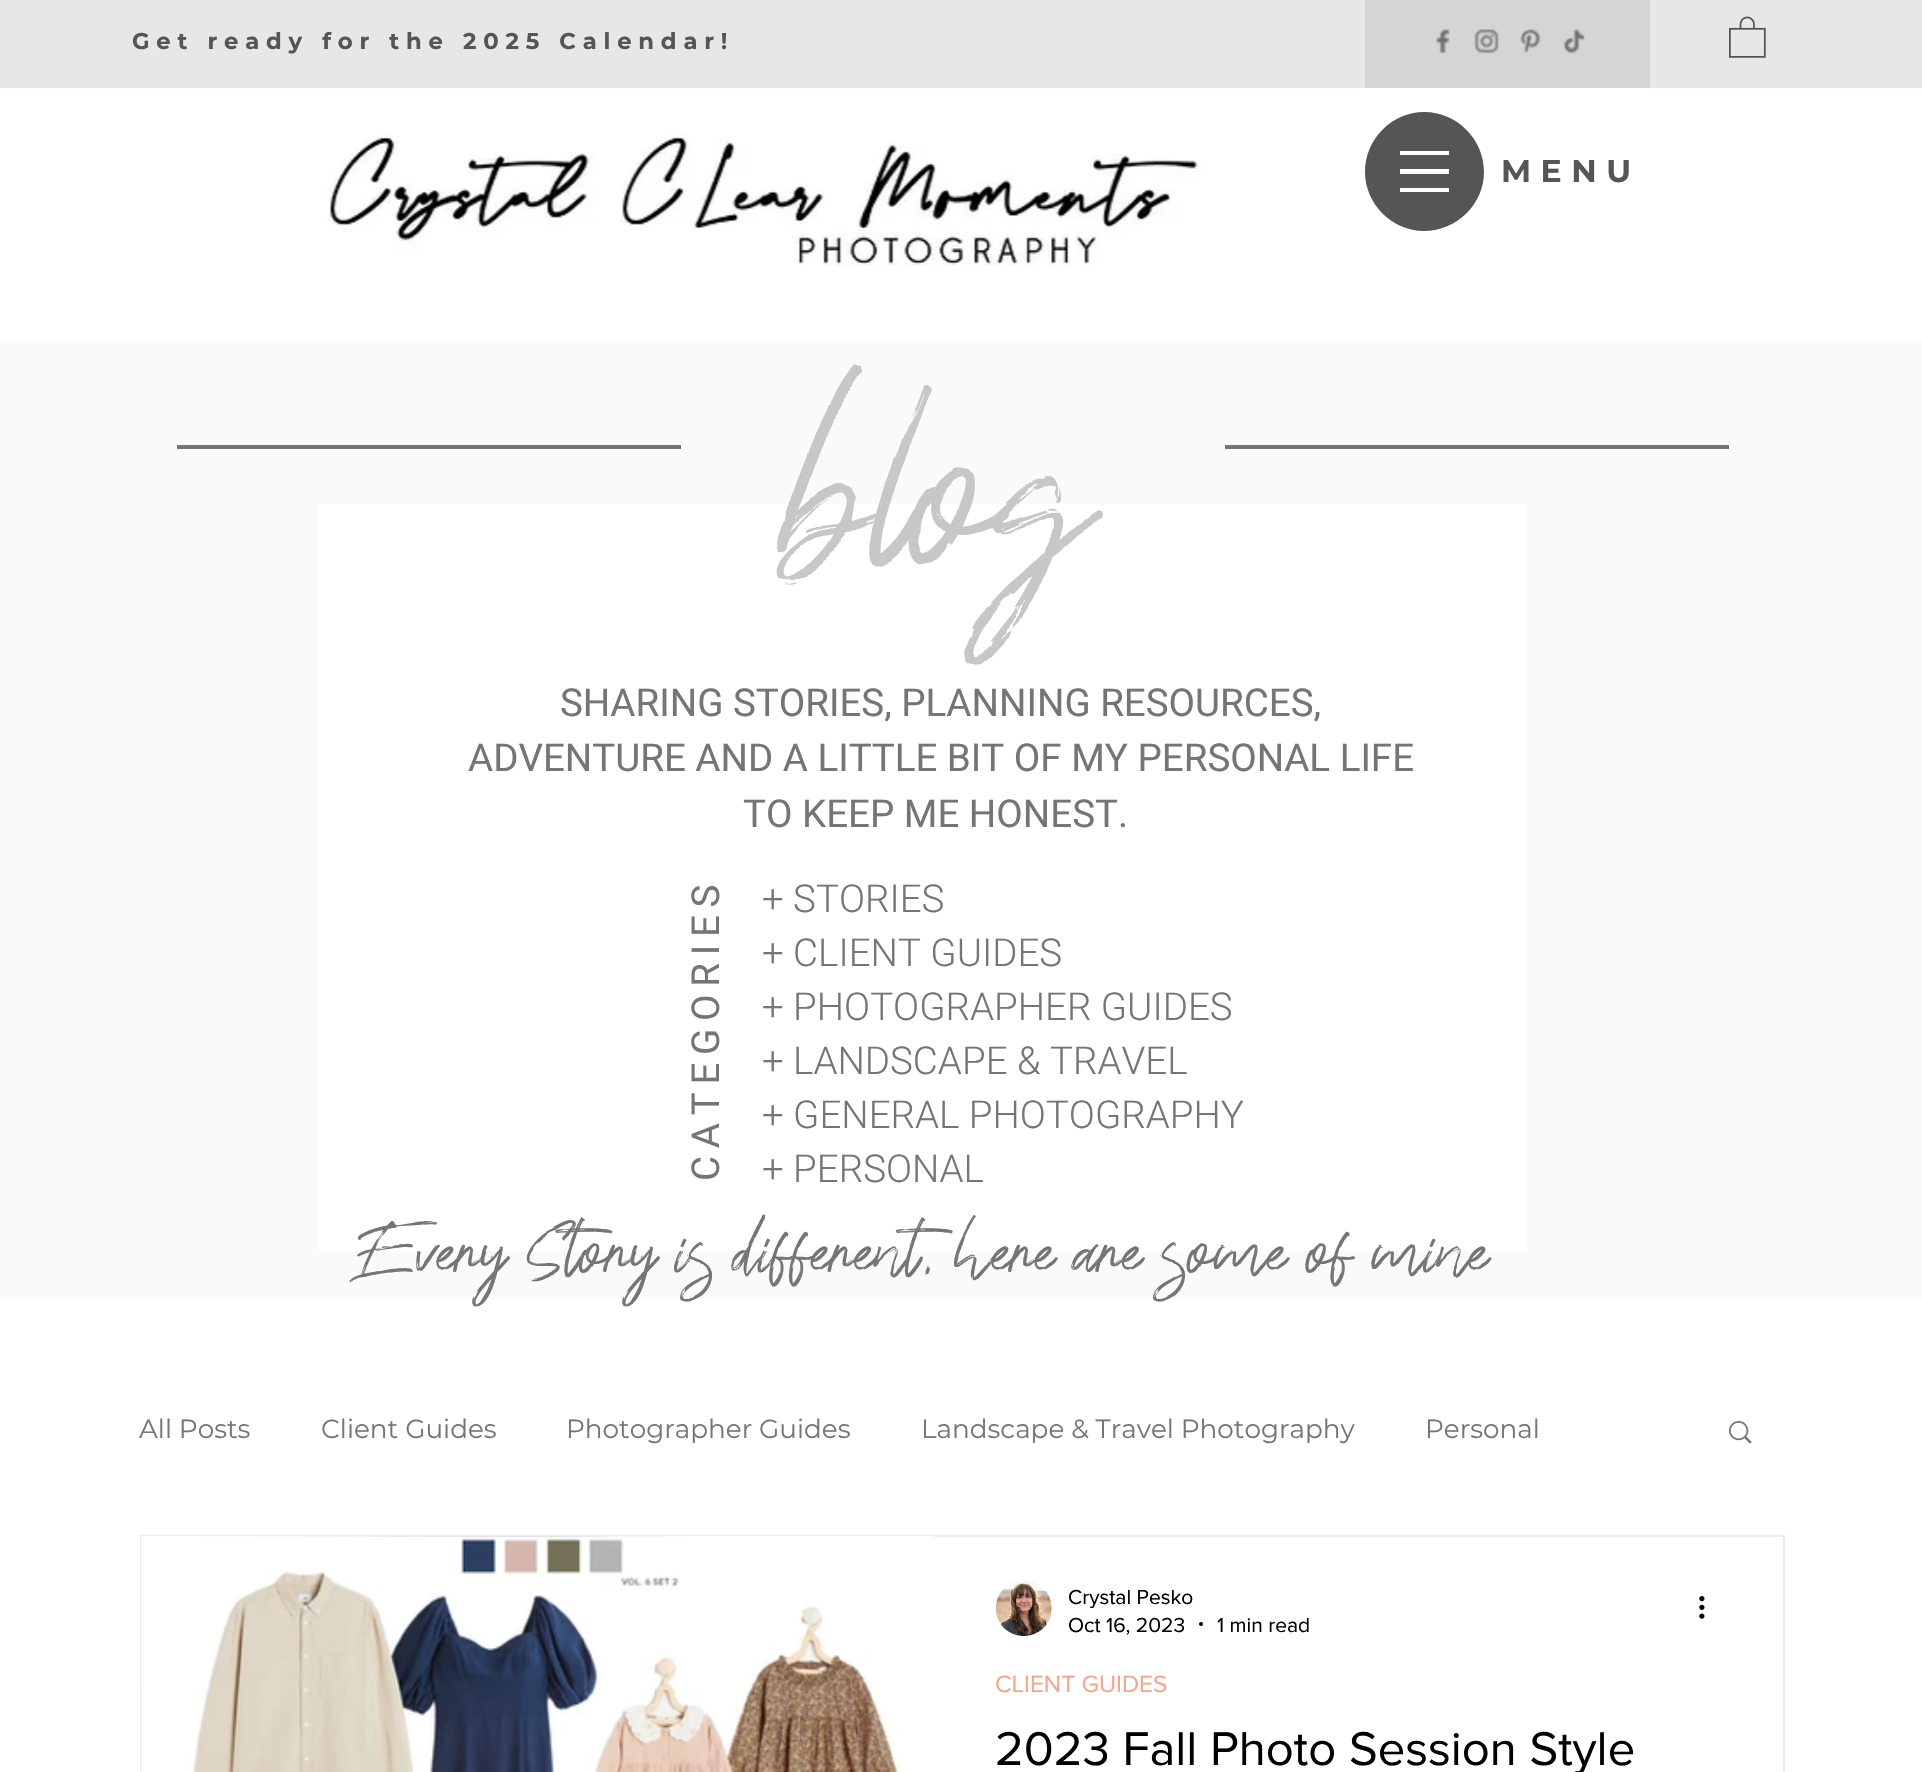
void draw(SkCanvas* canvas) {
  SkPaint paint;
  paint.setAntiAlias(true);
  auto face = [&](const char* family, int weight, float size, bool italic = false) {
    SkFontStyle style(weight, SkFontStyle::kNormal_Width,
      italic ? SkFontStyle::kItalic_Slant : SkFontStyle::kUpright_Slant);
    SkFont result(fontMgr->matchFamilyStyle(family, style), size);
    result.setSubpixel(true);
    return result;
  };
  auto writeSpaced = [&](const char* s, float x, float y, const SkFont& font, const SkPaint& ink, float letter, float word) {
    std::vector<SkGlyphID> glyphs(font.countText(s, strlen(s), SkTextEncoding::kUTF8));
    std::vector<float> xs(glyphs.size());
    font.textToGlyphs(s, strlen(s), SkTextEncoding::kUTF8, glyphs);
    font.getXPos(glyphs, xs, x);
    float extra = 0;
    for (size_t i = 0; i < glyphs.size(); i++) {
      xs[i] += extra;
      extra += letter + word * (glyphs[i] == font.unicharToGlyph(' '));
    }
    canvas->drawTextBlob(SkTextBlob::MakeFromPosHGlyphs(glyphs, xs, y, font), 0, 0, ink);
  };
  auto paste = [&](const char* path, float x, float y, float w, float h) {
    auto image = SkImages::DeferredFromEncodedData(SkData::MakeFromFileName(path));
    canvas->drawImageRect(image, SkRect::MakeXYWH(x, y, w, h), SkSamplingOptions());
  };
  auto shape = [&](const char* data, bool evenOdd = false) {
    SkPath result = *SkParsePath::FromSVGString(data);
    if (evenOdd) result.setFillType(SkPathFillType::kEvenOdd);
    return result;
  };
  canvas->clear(0xffffffff);
  paint.setColor(0xffe8e6e6);
  canvas->drawRect(SkRect::MakeXYWH(0, 0, 1922, 88), paint);
  paint.setColor(0xffd6d5d5);
  canvas->drawRect(SkRect::MakeXYWH(1365, 0, 285, 88), paint);
  paste("img/1.png", 1436, 29, 15, 25);
  paste("img/2.png", 1474, 29, 26, 25);
  paste("img/3.png", 1520, 29, 21, 25);
  paste("img/4.png", 1563, 29, 22, 25);
  paste("img/5.png", 1729, 16, 37, 42);
  paste("img/6.png", 327, 133, 874, 133);
  paint.setColor(0xff555555);
  canvas->drawPath(shape("M1424 112C1392 112 1365 139 1365 172C1365 204 1392 231 1424 231C1457 231 1484 204 1484 172C1484 139 1457 112 1424 112ZM1449 192H1400V188H1449ZM1449 174H1400V169H1449ZM1449 155H1400V151H1449Z"), paint);
  {
    const struct { float x, y, w, h; SkColor color; } items[] = {
      {0, 341, 1922, 958, 0xfffafafa},
      {177, 445, 504, 4, 0xff757575},
      {1225, 445, 504, 4, 0xff757575},
      {318, 504, 1208, 747, 0xffffffff},
    };
    for (auto [x, y, w, h, color] : items) {
      paint.setColor(color);
      canvas->drawRect(SkRect::MakeXYWH(x, y, w, h), paint);
    }
  }
  paste("img/7.png", 1729, 1421, 23, 23);
  paint.setStroke(true);
  paint.setStrokeWidth(2);
  paint.setColor(0xffeeecec);
  canvas->drawRect(SkRect::MakeXYWH(141, 1536, 1643, 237), paint);
  paste("img/8.png", 141, 1536, 793, 236);
  paste("img/9.png", 142, 1537, 792, 235);
  paste("img/10.png", 995, 1580, 57, 57);
  paint.setStroke(false);
  paint.setColor(0xff000000);
  canvas->drawCircle(1201, 1624, 2, paint);
  paste("img/11.png", 1699, 1596, 6, 23);
  auto f0 = face("Montserrat", 700, 22.75f);
  paint.setColor(0xff555555);
  writeSpaced("Get ready for the 2025 Calendar!", 132, 49, f0, paint, 6.8f, 0);
  auto f1 = face("Montserrat", 700, 31.5f);
  writeSpaced("MENU", 1501, 182, f1, paint, 9.5f, 0);
  auto f2 = face("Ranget", 400, 280);
  paint.setColor(0xffc7c7c7);
  canvas->drawString("blog", 787, 597, f2, paint);
  auto f3 = face("Heebo", 400, 38.5f);
  paint.setColor(0xff757575);
  {
    const struct { const char* s; float x, y; } items[] = {
      {"SHARING STORIES, PLANNING RESOURCES,", 560, 716},
      {"ADVENTURE AND A LITTLE BIT OF MY PERSONAL LIFE", 468, 771},
      {"TO KEEP ME HONEST.", 743, 827},
    };
    for (auto [s, x, y] : items) {
      canvas->drawString(s, x, y, f3, paint);
    }
  }
  canvas->save();
  canvas->rotate(-90, 719, 1181);
  writeSpaced("CATEGORIES", 719, 1181, f3, paint, 7.75f, 0);
  canvas->restore();
  auto f4 = face("Heebo", 300, 38.5f);
  {
    const struct { const char* s; float x, y; } items[] = {
      {"+ STORIES", 762, 912},
      {"+ CLIENT GUIDES", 762, 966},
      {"+ PHOTOGRAPHER GUIDES", 762, 1020},
      {"+ LANDSCAPE & TRAVEL", 762, 1074},
      {"+ GENERAL PHOTOGRAPHY", 762, 1128},
      {"+ PERSONAL", 762, 1182},
    };
    for (auto [s, x, y] : items) {
      canvas->drawString(s, x, y, f4, paint);
    }
  }
  auto f5 = face("Ranget", 400, 85.75f);
  canvas->drawString("Every Story is different, here are some of mine", 353, 1283, f5, paint);
  auto f6 = face("Montserrat", 400, 26.25f);
  {
    const struct { const char* s; float x, y; } items[] = {
      {"All Posts", 139, 1438},
      {"Client Guides", 321, 1438},
      {"Photographer Guides", 566, 1438},
      {"Landscape & Travel Photography", 921, 1438},
      {"Personal", 1425, 1438},
    };
    for (auto [s, x, y] : items) {
      canvas->drawString(s, x, y, f6, paint);
    }
  }
  auto f7 = face("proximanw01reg", 400, 21);
  paint.setColor(0xff000000);
  {
    const struct { const char* s; float x, y; } items[] = {
      {"Crystal Pesko", 1068, 1604},
      {"Oct 16, 2023", 1068, 1632},
      {"1 min read", 1217, 1632},
    };
    for (auto [s, x, y] : items) {
      canvas->drawString(s, x, y, f7, paint);
    }
  }
  auto f8 = face("proximanw01reg", 400, 24.5f);
  paint.setColor(0xfff3a78f);
  canvas->drawString("CLIENT GUIDES", 995, 1692, f8, paint);
  auto f9 = face("proximanw01reg", 400, 49);
  paint.setColor(0xff000000);
  canvas->drawString("2023 Fall Photo Session Style", 995, 1765, f9, paint);
}
